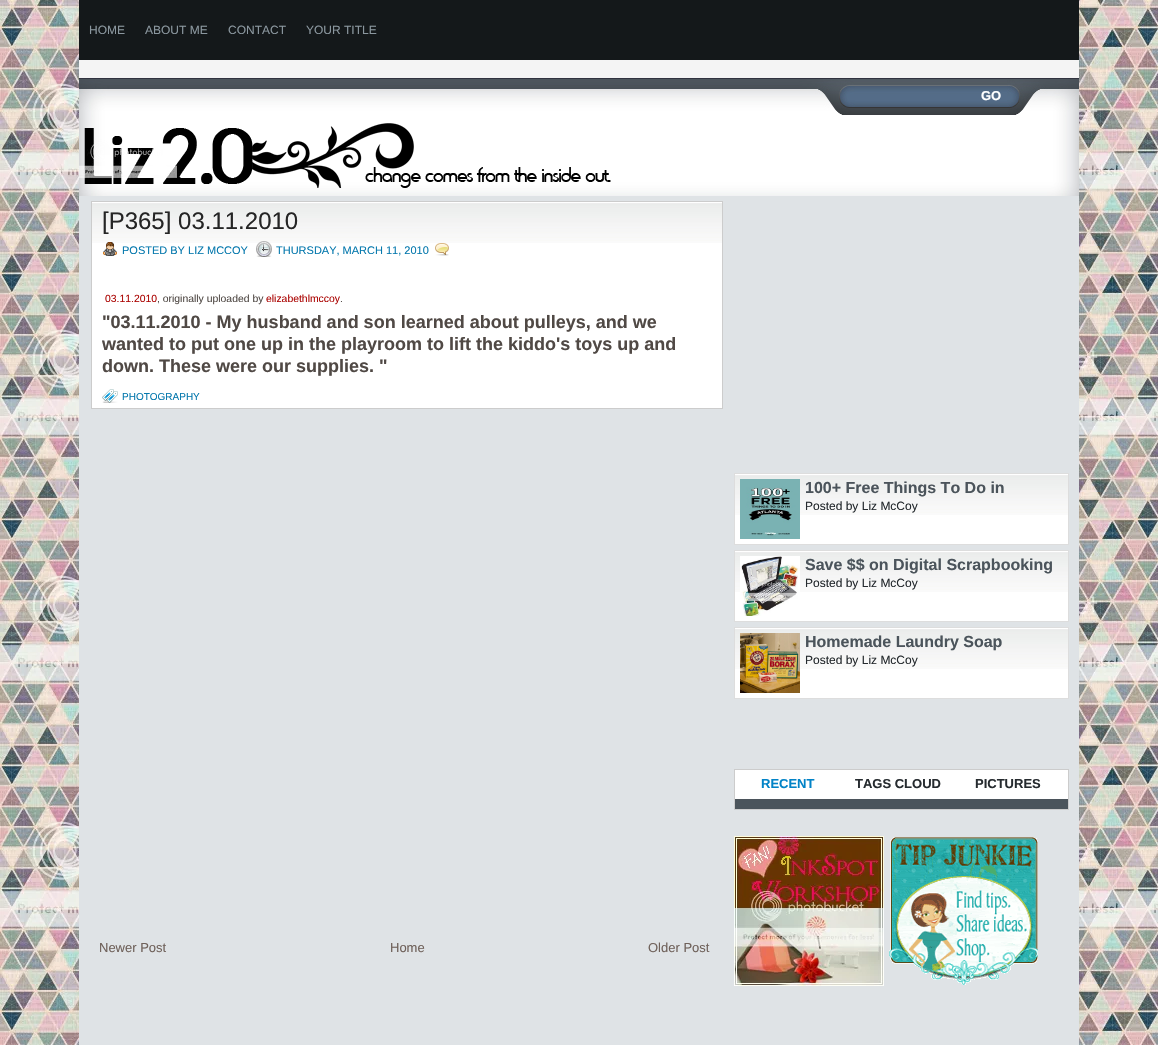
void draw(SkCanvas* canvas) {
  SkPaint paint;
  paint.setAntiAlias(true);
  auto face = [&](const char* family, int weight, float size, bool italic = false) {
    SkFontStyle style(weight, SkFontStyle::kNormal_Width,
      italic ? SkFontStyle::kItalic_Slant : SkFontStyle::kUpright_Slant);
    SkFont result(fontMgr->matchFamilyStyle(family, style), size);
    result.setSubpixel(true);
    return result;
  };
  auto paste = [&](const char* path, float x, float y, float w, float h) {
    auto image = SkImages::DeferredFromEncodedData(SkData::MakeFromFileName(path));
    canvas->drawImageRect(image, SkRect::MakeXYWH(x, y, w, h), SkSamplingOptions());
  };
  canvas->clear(0xffffffff);
  paste("img/1.png", 0, 0, 1158, 1045);
  paint.setColor(0xfff4f4f4);
  canvas->drawRect(SkRect::MakeXYWH(79, 60, 1000, 18), paint);
  paint.setColor(0xff14181a);
  canvas->drawRect(SkRect::MakeXYWH(79, 0, 1000, 60), paint);
  paste("img/2.png", 79, 78, 1000, 118);
  paste("img/3.png", 79, 123, 532, 65);
  paint.setColor(0xffdfe3e6);
  canvas->drawRect(SkRect::MakeXYWH(79, 196, 1000, 849), paint);
  paint.setColor(0xffffffff);
  canvas->drawRect(SkRect::MakeXYWH(92, 202, 630, 206), paint);
  paste("img/4.png", 92, 203, 630, 40);
  paint.setStroke(true);
  paint.setStrokeWidth(1);
  paint.setColor(0xffcccccc);
  canvas->drawRect(SkRect::MakeXYWH(91.5f, 201.5f, 631, 207), paint);
  paste("img/5.png", 103, 242, 14, 14);
  paste("img/6.png", 256, 241, 16, 16);
  paste("img/7.png", 435, 243, 14, 13);
  paste("img/8.png", 102, 389, 16, 14);
  paint.setStroke(false);
  paint.setColor(0xffffffff);
  canvas->drawRect(SkRect::MakeXYWH(735, 474, 333, 70), paint);
  paste("img/9.png", 735, 475, 333, 40);
  paint.setStroke(true);
  paint.setColor(0xffdddddd);
  canvas->drawRect(SkRect::MakeXYWH(734.5f, 473.5f, 334, 71), paint);
  paste("img/10.png", 740, 479, 60, 60);
  paint.setStroke(false);
  paint.setColor(0xffffffff);
  canvas->drawRect(SkRect::MakeXYWH(735, 551, 333, 70), paint);
  paste("img/9.png", 735, 552, 333, 40);
  paint.setStroke(true);
  paint.setColor(0xffdddddd);
  canvas->drawRect(SkRect::MakeXYWH(734.5f, 550.5f, 334, 71), paint);
  paste("img/11.png", 740, 556, 60, 60);
  paint.setStroke(false);
  paint.setColor(0xffffffff);
  canvas->drawRect(SkRect::MakeXYWH(735, 628, 333, 70), paint);
  paste("img/9.png", 735, 629, 333, 40);
  paint.setStroke(true);
  paint.setColor(0xffdddddd);
  canvas->drawRect(SkRect::MakeXYWH(734.5f, 627.5f, 334, 71), paint);
  paste("img/12.png", 740, 633, 60, 60);
  paint.setStroke(false);
  paint.setColor(0xffffffff);
  canvas->drawRect(SkRect::MakeXYWH(735, 770, 333, 29), paint);
  paint.setStroke(true);
  paint.setColor(0xffcccccc);
  canvas->drawRect(SkRect::MakeXYWH(734.5f, 769.5f, 334, 40), paint);
  paint.setStroke(false);
  paint.setColor(0xff4b545b);
  canvas->drawRect(SkRect::MakeXYWH(735, 799, 333, 10), paint);
  paste("img/13.png", 734, 836, 150, 150);
  paste("img/14.png", 889, 837, 149, 148);
  auto f0 = face("Liberation Sans", 400, 12);
  paint.setColor(0xff8b979f);
  {
    const struct { const char* s; float x, y; } items[] = {
      {"HOME", 89, 34},
      {"ABOUT ME", 145, 34},
      {"CONTACT", 228, 34},
      {"YOUR TITLE", 306, 34},
    };
    for (auto [s, x, y] : items) {
      canvas->drawString(s, x, y, f0, paint);
    }
  }
  auto f1 = face("Liberation Sans", 700, 13);
  paint.setColor(0xffffffff);
  canvas->drawString("GO", 981, 100, f1, paint);
  auto f2 = face("Liberation Sans", 400, 24);
  paint.setColor(0xff252525);
  canvas->drawString("[P365] 03.11.2010", 102, 229, f2, paint);
  auto f3 = face("Liberation Sans", 400, 11);
  paint.setColor(0xff0578ad);
  canvas->drawString("POSTED BY LIZ MCCOY", 122, 254, f3, paint);
  canvas->drawString("THURSDAY, MARCH 11, 2010", 276, 254, f3, paint);
  auto f4 = face("Liberation Sans", 400, 10.4f);
  paint.setColor(0xffac0604);
  canvas->drawString("03.11.2010", 105, 302, f4, paint);
  paint.setColor(0xff504945);
  canvas->drawString(", originally uploaded by", 157, 302, f4, paint);
  paint.setColor(0xffac0604);
  canvas->drawString("elizabethlmccoy", 266, 302, f4, paint);
  paint.setColor(0xff504945);
  canvas->drawString(".", 340, 302, f4, paint);
  auto f5 = face("Liberation Sans", 700, 18);
  {
    const struct { const char* s; float x, y; } items[] = {
      {"\"03.11.2010 - My husband and son learned about pulleys, and we", 102, 328},
      {"wanted to put one up in the playroom to lift the kiddo's toys up and", 102, 350},
      {"down. These were our supplies. \"", 102, 372},
    };
    for (auto [s, x, y] : items) {
      canvas->drawString(s, x, y, f5, paint);
    }
  }
  auto f6 = face("Liberation Sans", 400, 10);
  paint.setColor(0xff0578ad);
  canvas->drawString("PHOTOGRAPHY", 122, 400, f6, paint);
  auto f7 = face("Liberation Sans", 400, 13);
  paint.setColor(0xff6f615a);
  {
    const struct { const char* s; float x, y; } items[] = {
      {"Newer Post", 99, 952},
      {"Home", 390, 952},
      {"Older Post", 648, 952},
    };
    for (auto [s, x, y] : items) {
      canvas->drawString(s, x, y, f7, paint);
    }
  }
  auto f8 = face("Liberation Sans", 700, 16);
  paint.setColor(0xff4b545b);
  canvas->drawString("100+ Free Things To Do in", 805, 493, f8, paint);
  paint.setColor(0xff262b2f);
  canvas->drawString("Posted by Liz McCoy", 805, 510, f0, paint);
  paint.setColor(0xff4b545b);
  canvas->drawString("Save $$ on Digital Scrapbooking", 805, 570, f8, paint);
  paint.setColor(0xff262b2f);
  canvas->drawString("Posted by Liz McCoy", 805, 587, f0, paint);
  paint.setColor(0xff4b545b);
  canvas->drawString("Homemade Laundry Soap", 805, 647, f8, paint);
  paint.setColor(0xff262b2f);
  canvas->drawString("Posted by Liz McCoy", 805, 664, f0, paint);
  paint.setColor(0xff0283c7);
  canvas->drawString("RECENT", 761, 788, f1, paint);
  paint.setColor(0xff262b2f);
  canvas->drawString("TAGS CLOUD", 855, 788, f1, paint);
  canvas->drawString("PICTURES", 975, 788, f1, paint);
}
